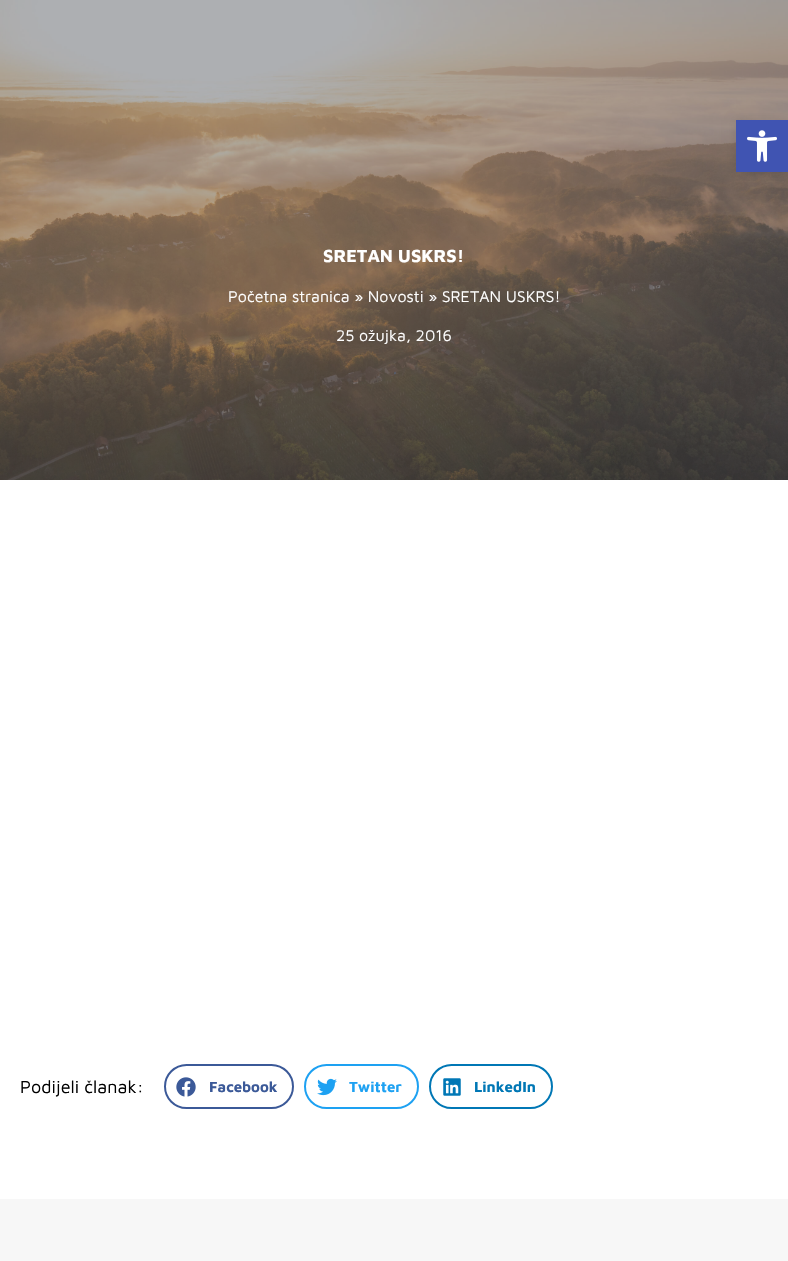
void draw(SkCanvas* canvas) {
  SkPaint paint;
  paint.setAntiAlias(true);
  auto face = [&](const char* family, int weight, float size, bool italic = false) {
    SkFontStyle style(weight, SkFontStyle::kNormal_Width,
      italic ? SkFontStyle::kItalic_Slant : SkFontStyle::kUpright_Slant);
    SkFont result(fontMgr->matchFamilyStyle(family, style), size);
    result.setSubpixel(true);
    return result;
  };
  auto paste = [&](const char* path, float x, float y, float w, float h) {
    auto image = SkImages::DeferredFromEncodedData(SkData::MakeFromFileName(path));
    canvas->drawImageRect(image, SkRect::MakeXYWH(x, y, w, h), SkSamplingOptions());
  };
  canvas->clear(0xffffffff);
  paste("img/2.png", 0, 0, 788, 480);
  paint.setColor(0x1a000000);
  paint.setMaskFilter(SkMaskFilter::MakeBlur(kNormal_SkBlurStyle, 5));
  canvas->drawRect(SkRect::MakeXYWH(736, 120, 52, 52), paint);
  paint.setMaskFilter(nullptr);
  paint.setColor(0xff4054b2);
  canvas->drawRect(SkRect::MakeXYWH(736, 120, 52, 52), paint);
  paste("img/1.png", 747, 130, 30, 32);
  paint.setStroke(true);
  paint.setStrokeWidth(2);
  paint.setColor(0xff3b5998);
  canvas->drawRoundRect(SkRect::MakeXYWH(165, 1065, 128, 43), 21.5f, 21.5f, paint);
  paste("img/3.png", 176, 1077, 20, 20);
  paint.setColor(0xff1da1f2);
  canvas->drawRoundRect(SkRect::MakeXYWH(305, 1065, 113, 43), 21.5f, 21.5f, paint);
  paste("img/4.png", 317, 1078, 20, 18);
  paint.setColor(0xff0077b5);
  canvas->drawRoundRect(SkRect::MakeXYWH(430, 1065, 122, 43), 21.5f, 21.5f, paint);
  paste("img/5.png", 443, 1078, 18, 18);
  paint.setStroke(false);
  paint.setColor(0xfff7f7f7);
  canvas->drawRect(SkRect::MakeXYWH(0, 1199, 788, 62), paint);
  auto f0 = face("Maven Pro", 700, 18);
  paint.setColor(0xffffffff);
  canvas->drawString("SRETAN USKRS!", 323, 262, f0, paint);
  auto f1 = face("Maven Pro", 400, 16);
  canvas->drawString("Početna stranica » Novosti » SRETAN USKRS!", 228, 302, f1, paint);
  canvas->drawString("25 ožujka, 2016", 336, 341, f1, paint);
  auto f2 = face("Maven Pro", 400, 18);
  paint.setColor(0xff000000);
  canvas->drawString("Podijeli članak:", 20, 1093, f2, paint);
  auto f3 = face("Maven Pro", 700, 15);
  paint.setColor(0xff3b5998);
  canvas->drawString("Facebook", 209, 1092, f3, paint);
  paint.setColor(0xff1da1f2);
  canvas->drawString("Twitter", 349, 1092, f3, paint);
  paint.setColor(0xff0077b5);
  canvas->drawString("LinkedIn", 474, 1092, f3, paint);
}
